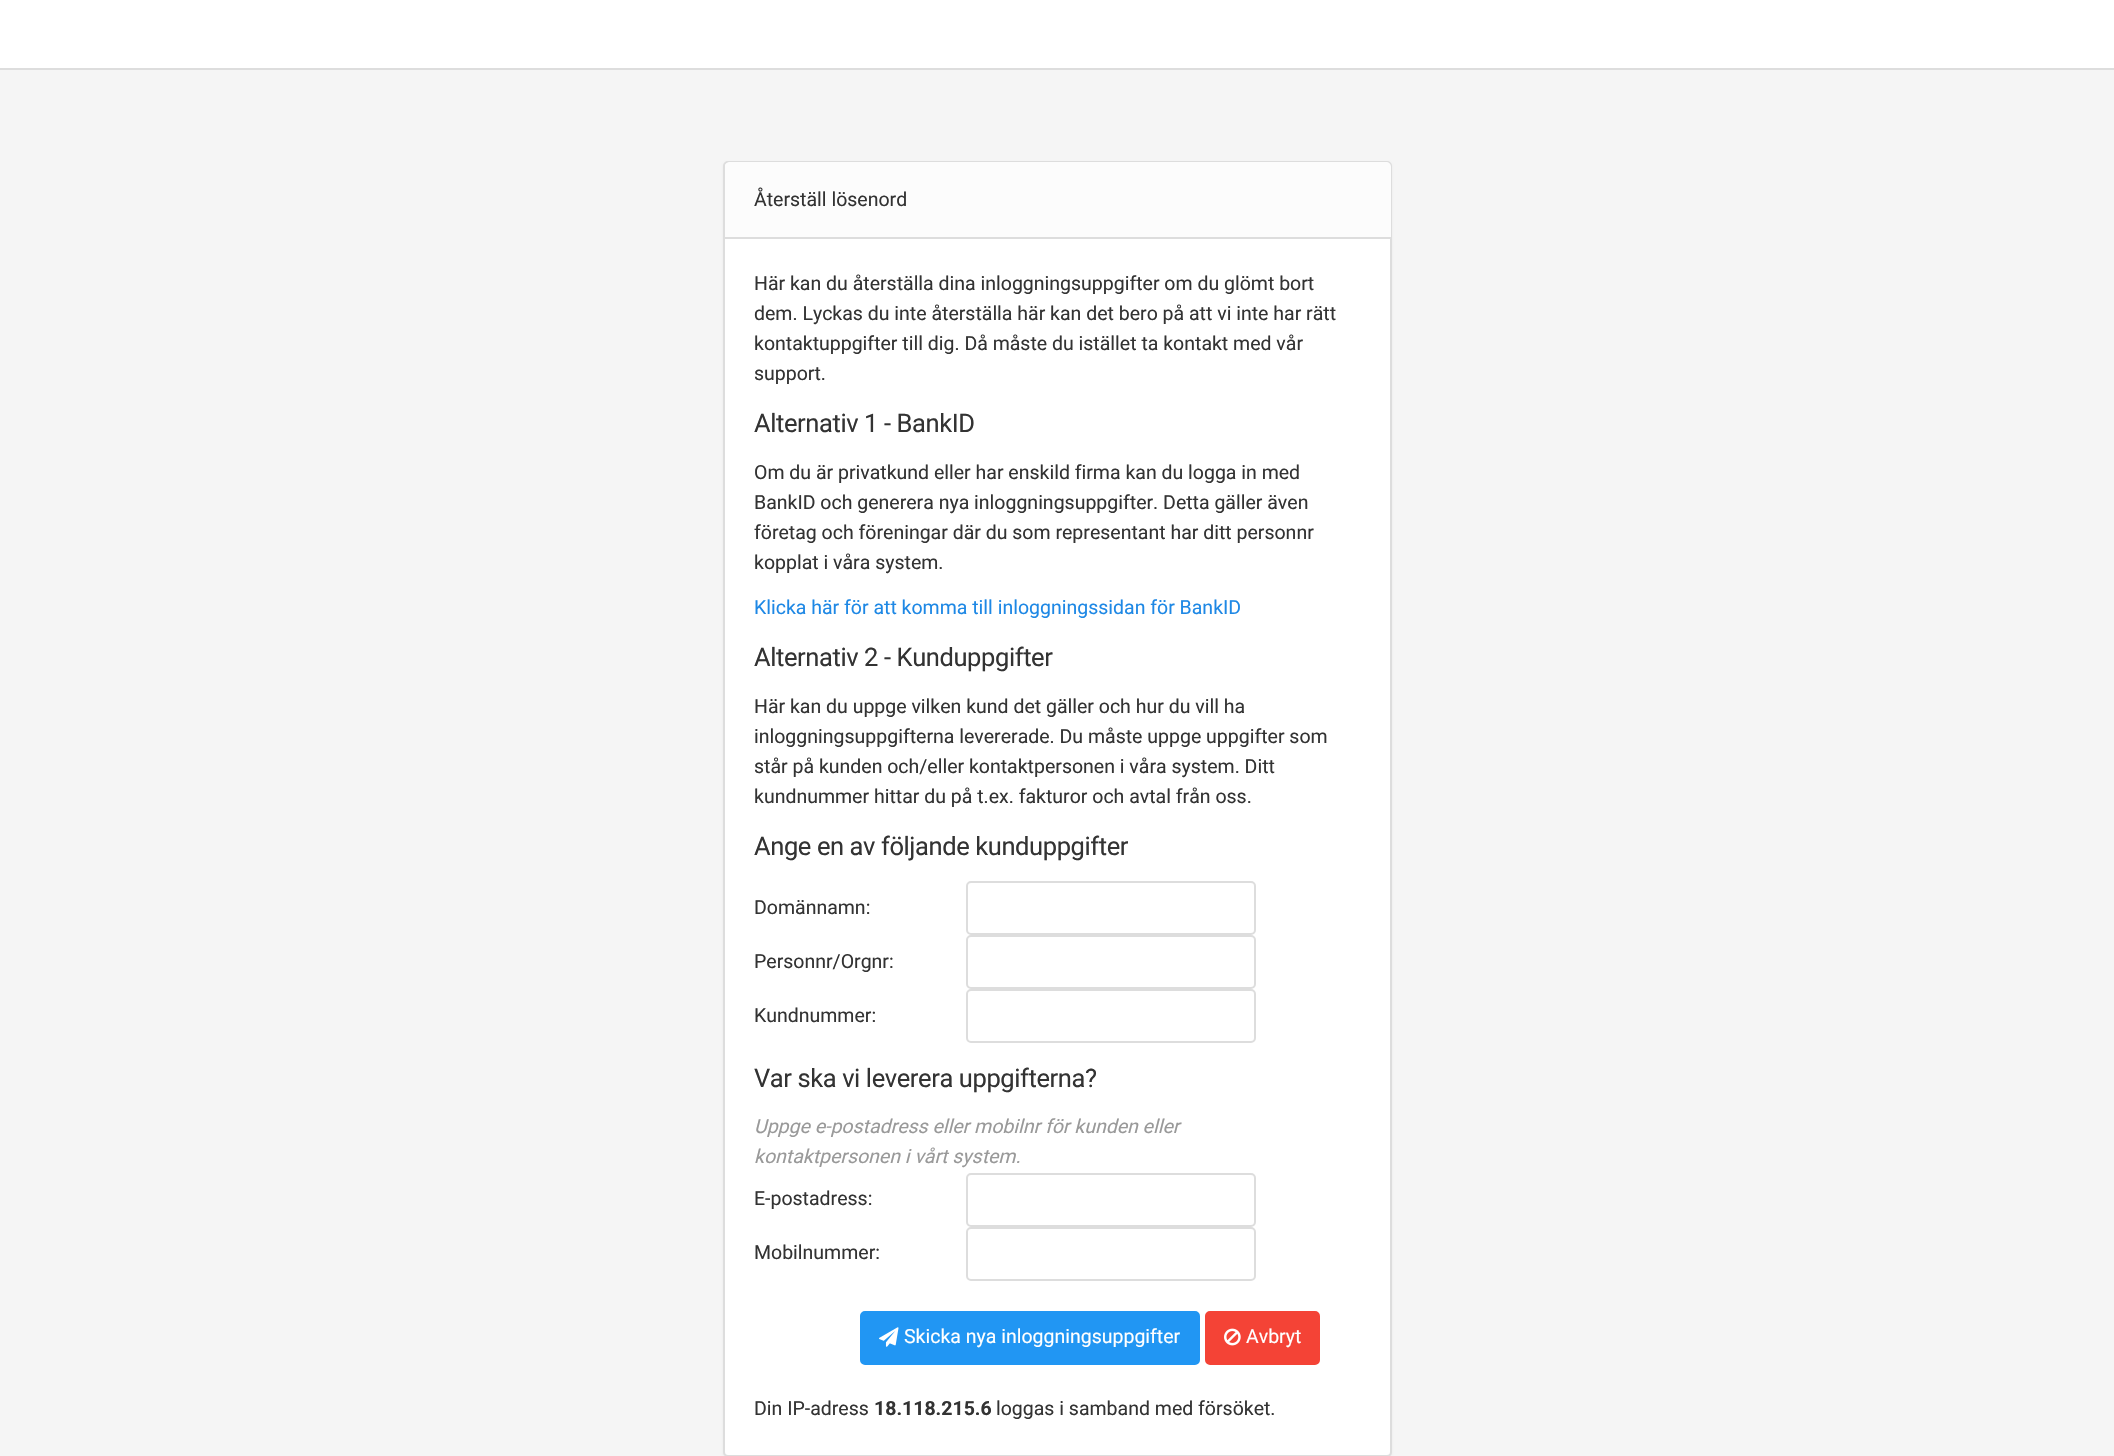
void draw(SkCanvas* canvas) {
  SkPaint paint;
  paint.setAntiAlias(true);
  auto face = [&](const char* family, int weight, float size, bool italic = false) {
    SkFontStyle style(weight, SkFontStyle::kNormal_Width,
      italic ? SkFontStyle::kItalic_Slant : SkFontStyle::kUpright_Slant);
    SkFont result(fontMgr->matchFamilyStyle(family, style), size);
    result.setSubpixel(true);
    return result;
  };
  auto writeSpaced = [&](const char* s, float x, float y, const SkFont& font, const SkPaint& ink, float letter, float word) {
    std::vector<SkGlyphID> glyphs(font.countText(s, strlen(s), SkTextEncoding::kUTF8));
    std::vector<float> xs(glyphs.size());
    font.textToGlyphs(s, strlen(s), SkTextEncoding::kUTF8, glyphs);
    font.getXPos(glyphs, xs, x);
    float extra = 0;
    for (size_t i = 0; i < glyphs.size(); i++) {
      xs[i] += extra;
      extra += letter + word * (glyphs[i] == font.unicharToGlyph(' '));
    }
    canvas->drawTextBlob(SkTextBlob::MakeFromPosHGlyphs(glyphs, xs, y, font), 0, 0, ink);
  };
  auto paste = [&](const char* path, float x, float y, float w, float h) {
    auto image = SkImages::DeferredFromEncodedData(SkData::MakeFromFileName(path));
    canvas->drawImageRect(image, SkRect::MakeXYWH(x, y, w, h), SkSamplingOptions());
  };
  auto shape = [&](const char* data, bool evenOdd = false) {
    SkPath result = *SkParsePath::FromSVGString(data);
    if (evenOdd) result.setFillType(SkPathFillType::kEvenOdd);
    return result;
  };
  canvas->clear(0xfff5f5f5);
  paint.setColor(0xffffffff);
  canvas->drawRect(SkRect::MakeXYWH(0, 0, 2114, 68), paint);
  paint.setColor(0xffdddddd);
  canvas->drawRect(SkRect::MakeXYWH(0, 68, 2114, 2), paint);
  paint.setColor(0x0d000000);
  paint.setMaskFilter(SkMaskFilter::MakeBlur(kNormal_SkBlurStyle, 1));
  canvas->drawRoundRect(SkRect::MakeXYWH(723, 162, 669, 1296), 5, 5, paint);
  paint.setMaskFilter(nullptr);
  paint.setColor(0xffffffff);
  canvas->drawRoundRect(SkRect::MakeXYWH(724, 162, 667, 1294), 4, 4, paint);
  paint.setStroke(true);
  paint.setStrokeWidth(2);
  paint.setColor(0xffdddddd);
  canvas->drawRoundRect(SkRect::MakeXYWH(724, 162, 667, 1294), 4, 4, paint);
  paint.setStroke(false);
  paint.setColor(0xfffcfcfc);
  canvas->drawPath(shape("M730 162H1386C1389 162 1391 164 1391 167V239H725V167C725 164 727 162 730 162Z"), paint);
  paint.setColor(0xffdddddd);
  canvas->drawRect(SkRect::MakeXYWH(725, 237, 666, 2), paint);
  paint.setStroke(true);
  canvas->drawRoundRect(SkRect::MakeXYWH(967, 882, 288, 52), 4, 4, paint);
  canvas->drawRoundRect(SkRect::MakeXYWH(967, 936, 288, 52), 4, 4, paint);
  canvas->drawRoundRect(SkRect::MakeXYWH(967, 990, 288, 52), 4, 4, paint);
  canvas->drawRoundRect(SkRect::MakeXYWH(967, 1174, 288, 52), 4, 4, paint);
  canvas->drawRoundRect(SkRect::MakeXYWH(967, 1228, 288, 52), 4, 4, paint);
  paint.setStroke(false);
  paint.setColor(0xff2196f3);
  canvas->drawRoundRect(SkRect::MakeXYWH(861, 1312, 338, 52), 4, 4, paint);
  paint.setStroke(true);
  canvas->drawRoundRect(SkRect::MakeXYWH(861, 1312, 338, 52), 4, 4, paint);
  paste("img/1.png", 879, 1327, 20, 20);
  paint.setStroke(false);
  paint.setColor(0xfff44336);
  canvas->drawRoundRect(SkRect::MakeXYWH(1206, 1312, 113, 52), 4, 4, paint);
  paint.setStroke(true);
  canvas->drawRoundRect(SkRect::MakeXYWH(1206, 1312, 113, 52), 4, 4, paint);
  paste("img/2.png", 1224, 1328, 17, 18);
  auto f0 = face("Roboto", 400, 19.5f);
  paint.setStroke(false);
  paint.setColor(0xff333333);
  {
    const struct { const char* s; float x, y; } items[] = {
      {"Återställ lösenord", 754, 206},
      {"Här kan du återställa dina inloggningsuppgifter om du glömt bort", 754, 290},
      {"dem. Lyckas du inte återställa här kan det bero på att vi inte har rätt", 754, 320},
      {"kontaktuppgifter till dig. Då måste du istället ta kontakt med vår", 754, 350},
      {"support.", 754, 380},
    };
    for (auto [s, x, y] : items) {
      canvas->drawString(s, x, y, f0, paint);
    }
  }
  auto f1 = face("Roboto", 400, 25.5f);
  writeSpaced("Alternativ 1 - BankID", 754, 432, f1, paint, -0.4f, 0);
  {
    const struct { const char* s; float x, y; } items[] = {
      {"Om du är privatkund eller har enskild firma kan du logga in med", 754, 479},
      {"BankID och generera nya inloggningsuppgifter. Detta gäller även", 754, 509},
      {"företag och föreningar där du som representant har ditt personnr", 754, 539},
      {"kopplat i våra system.", 754, 569},
    };
    for (auto [s, x, y] : items) {
      canvas->drawString(s, x, y, f0, paint);
    }
  }
  paint.setColor(0xff1e88e5);
  canvas->drawString("Klicka här för att komma till inloggningssidan för BankID", 754, 614, f0, paint);
  paint.setColor(0xff333333);
  writeSpaced("Alternativ 2 - Kunduppgifter", 754, 666, f1, paint, -0.4f, 0);
  {
    const struct { const char* s; float x, y; } items[] = {
      {"Här kan du uppge vilken kund det gäller och hur du vill ha", 754, 713},
      {"inloggningsuppgifterna levererade. Du måste uppge uppgifter som", 754, 743},
      {"står på kunden och/eller kontaktpersonen i våra system. Ditt", 754, 773},
      {"kundnummer hittar du på t.ex. fakturor och avtal från oss.", 754, 803},
    };
    for (auto [s, x, y] : items) {
      canvas->drawString(s, x, y, f0, paint);
    }
  }
  writeSpaced("Ange en av följande kunduppgifter", 754, 855, f1, paint, -0.4f, 0);
  {
    const struct { const char* s; float x, y; } items[] = {
      {"Domännamn:", 754, 914},
      {"Personnr/Orgnr:", 754, 968},
      {"Kundnummer:", 754, 1022},
    };
    for (auto [s, x, y] : items) {
      canvas->drawString(s, x, y, f0, paint);
    }
  }
  writeSpaced("Var ska vi leverera uppgifterna?", 754, 1087, f1, paint, -0.4f, 0);
  auto f2 = face("Roboto", 400, 19.5f, true);
  paint.setColor(0xff999999);
  canvas->drawString("Uppge e-postadress eller mobilnr för kunden eller", 754, 1133, f2, paint);
  canvas->drawString("kontaktpersonen i vårt system.", 754, 1163, f2, paint);
  paint.setColor(0xff333333);
  canvas->drawString("E-postadress:", 754, 1205, f0, paint);
  canvas->drawString("Mobilnummer:", 754, 1259, f0, paint);
  paint.setColor(0xffffffff);
  canvas->drawString("Skicka nya inloggningsuppgifter", 904, 1343, f0, paint);
  canvas->drawString("Avbryt", 1246, 1343, f0, paint);
  paint.setColor(0xff333333);
  canvas->drawString("Din IP-adress", 754, 1415, f0, paint);
  auto f3 = face("Roboto", 700, 19.5f);
  canvas->drawString("18.118.215.6", 874, 1415, f3, paint);
  canvas->drawString("loggas i samband med försöket.", 996, 1415, f0, paint);
}
